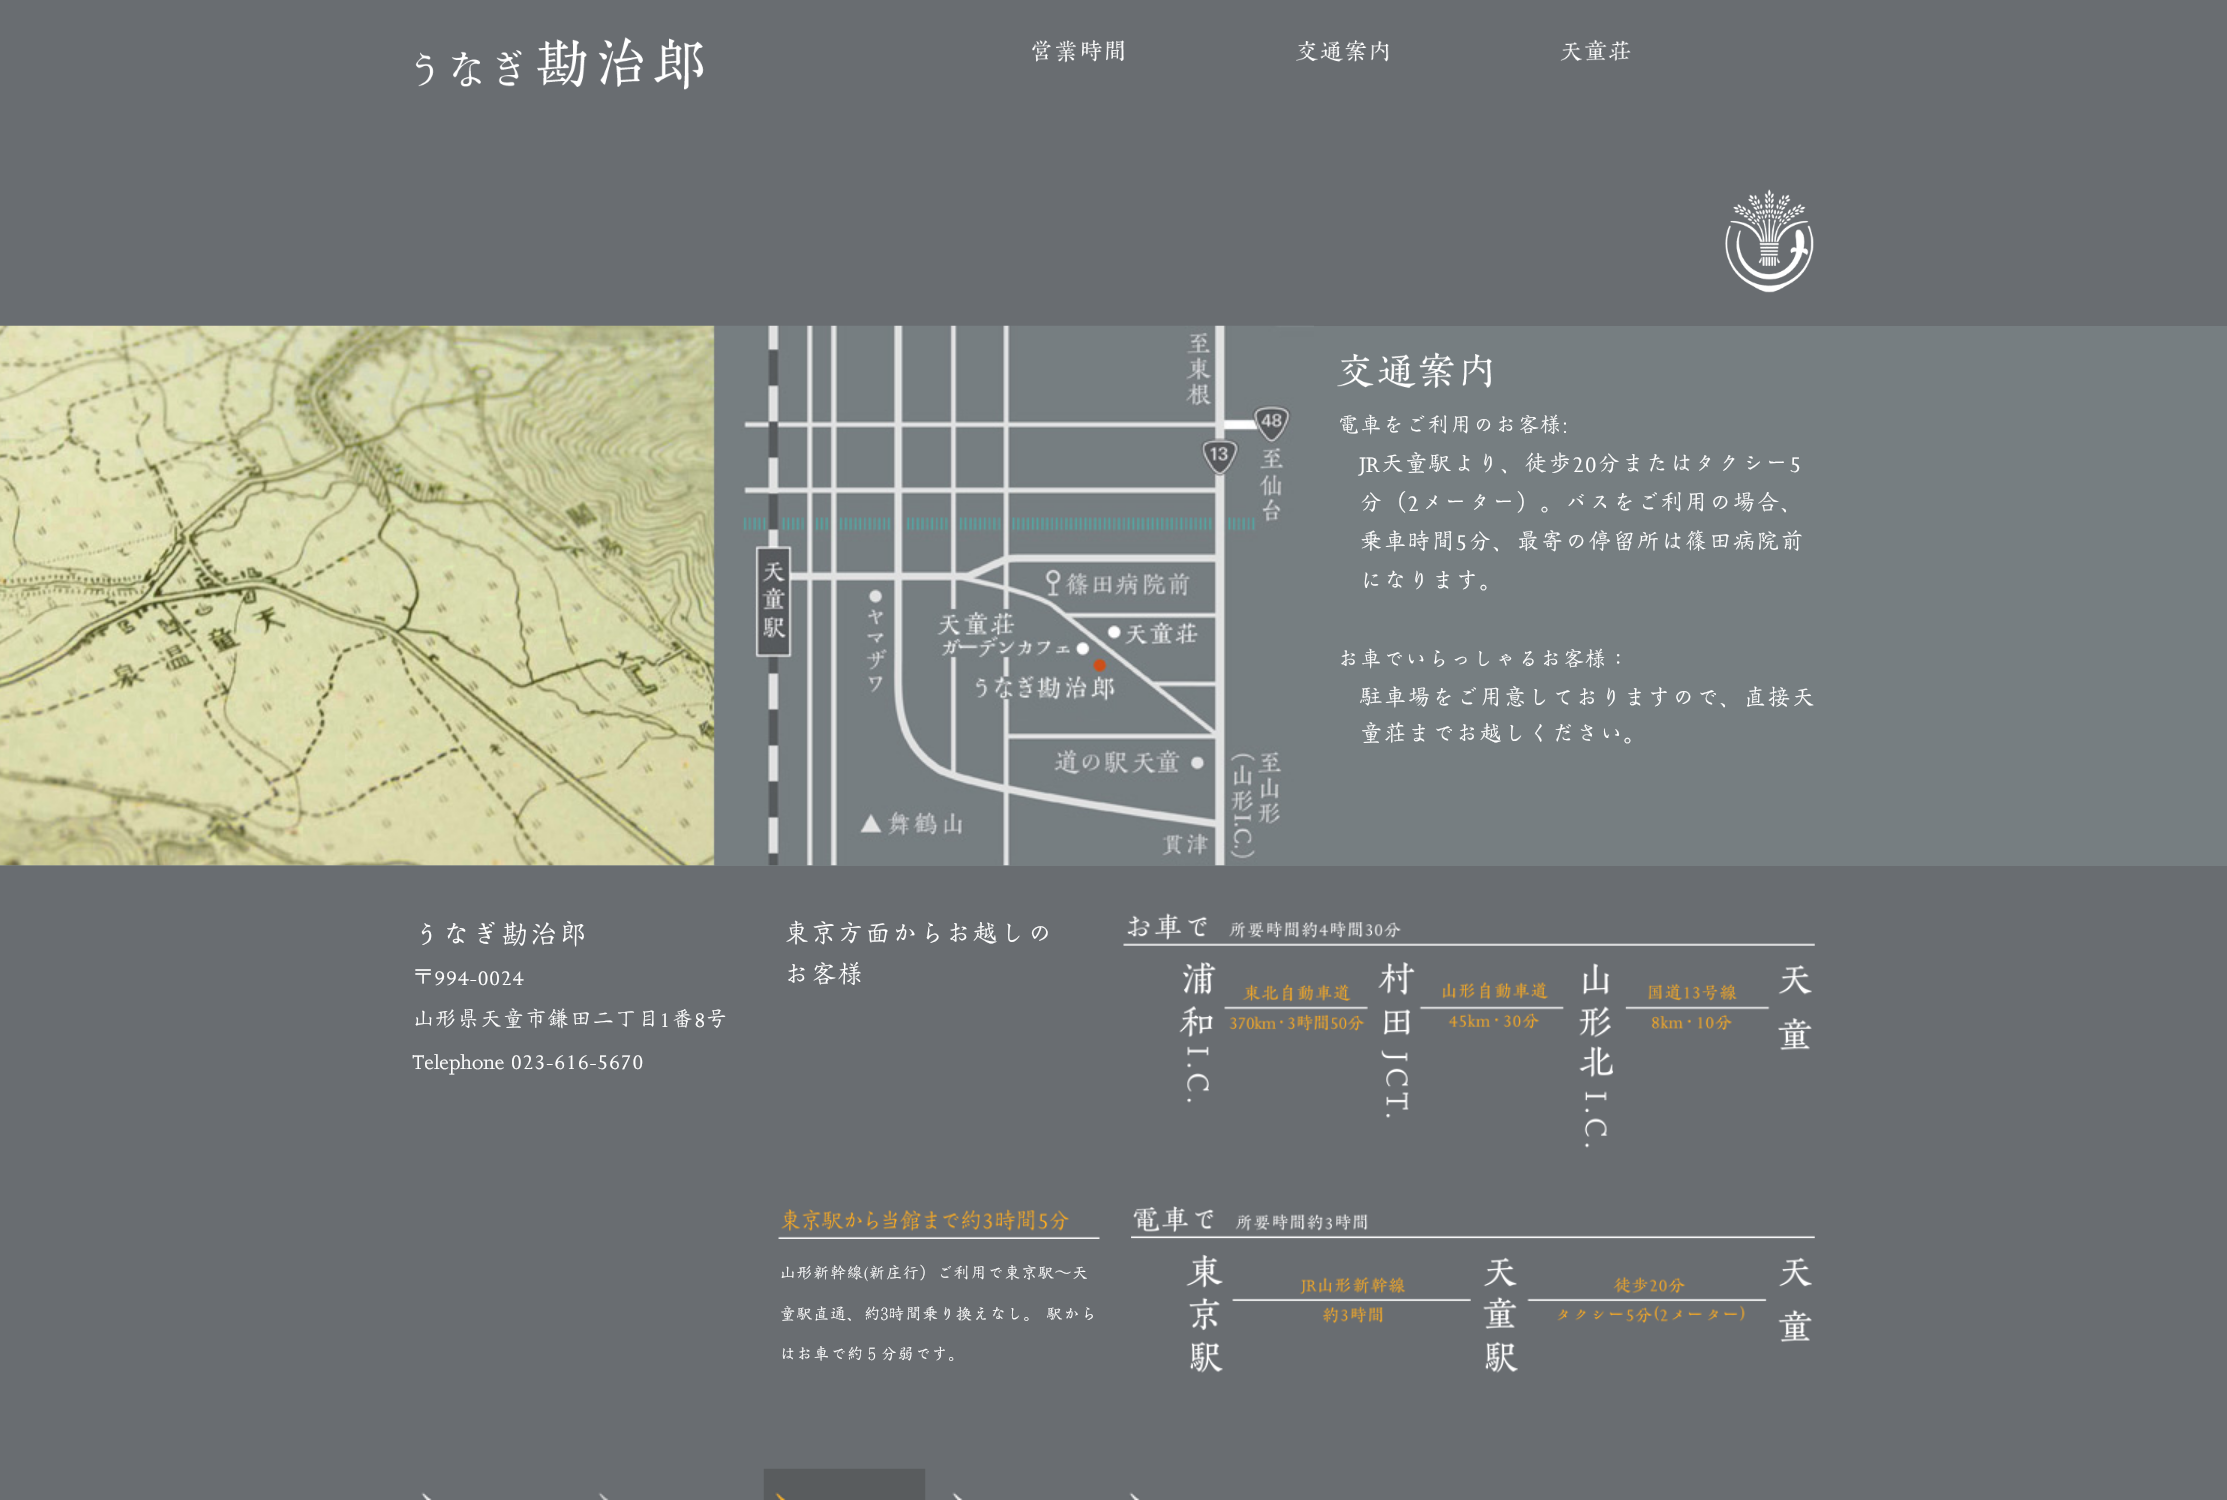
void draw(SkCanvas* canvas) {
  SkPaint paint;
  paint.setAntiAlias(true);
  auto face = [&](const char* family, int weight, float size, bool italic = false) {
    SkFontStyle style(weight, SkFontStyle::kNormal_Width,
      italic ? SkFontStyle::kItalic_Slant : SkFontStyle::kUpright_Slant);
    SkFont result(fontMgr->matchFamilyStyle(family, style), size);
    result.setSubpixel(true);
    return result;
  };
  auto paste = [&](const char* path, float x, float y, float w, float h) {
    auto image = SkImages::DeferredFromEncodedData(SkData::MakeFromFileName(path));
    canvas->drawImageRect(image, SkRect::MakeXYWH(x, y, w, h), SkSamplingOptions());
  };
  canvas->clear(0xff696d71);
  paste("img/1.png", 415, 37, 289, 53);
  paste("img/2.png", 1032, 40, 93, 23);
  paste("img/3.png", 1296, 40, 93, 22);
  paste("img/4.png", 1560, 39, 71, 22);
  paste("img/5.png", 1725, 189, 89, 104);
  paint.setColor(0xff767e81);
  canvas->drawRect(SkRect::MakeXYWH(0, 326, 2227, 540), paint);
  paste("img/6.png", 0, 325, 1314, 541);
  paste("img/7.png", 1337, 352, 155, 36);
  paste("img/8.png", 1123, 913, 692, 235);
  paste("img/9.png", 778, 1209, 322, 30);
  paste("img/10.png", 1131, 1206, 684, 167);
  paste("img/11.png", 421, 1492, 11, 8);
  paste("img/12.png", 598, 1492, 11, 8);
  paste("img/13.png", 763, 1468, 163, 32);
  paste("img/14.png", 952, 1492, 11, 8);
  paste("img/11.png", 1129, 1492, 11, 8);
  auto f0 = face("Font", 400, 22.5f);
  paint.setColor(0xffffffff);
  canvas->drawString("電車をご利用のお客様:", 1337, 433, f0, paint);
  auto f1 = face("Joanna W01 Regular", 400, 24);
  canvas->drawString("JR", 1359, 472, f1, paint);
  auto f2 = face("Font", 400, 24);
  canvas->drawString("天童駅より、徒歩", 1380, 472, f2, paint);
  canvas->drawString("20", 1572, 472, f1, paint);
  canvas->drawString("分またはタクシー", 1597, 472, f2, paint);
  canvas->drawString("5", 1789, 472, f1, paint);
  canvas->drawString("分（", 1359, 511, f2, paint);
  canvas->drawString("2", 1407, 511, f1, paint);
  canvas->drawString("メーター）。バスをご利用の場合、", 1420, 511, f2, paint);
  canvas->drawString("乗車時間", 1359, 550, f2, paint);
  canvas->drawString("5", 1455, 550, f1, paint);
  canvas->drawString("分、最寄の停留所は篠田病院前", 1468, 550, f2, paint);
  canvas->drawString("になります。", 1359, 589, f2, paint);
  canvas->drawString("お車でいらっしゃるお客様：", 1337, 667, f0, paint);
  canvas->drawString("駐車場をご用意しておりますので、直接天", 1359, 706, f2, paint);
  canvas->drawString("童荘までお越しください。", 1359, 742, f2, paint);
  auto f3 = face("Font", 400, 29.25f);
  canvas->drawString("うなぎ勘治郎", 412, 945, f3, paint);
  canvas->drawString("〒", 412, 985, f0, paint);
  auto f4 = face("Joanna W01 Regular", 400, 22.5f);
  canvas->drawString("994-0024", 434, 985, f4, paint);
  canvas->drawString("山形県天童市鎌田二丁目", 412, 1027, f0, paint);
  canvas->drawString("1", 659, 1027, f4, paint);
  canvas->drawString("番", 671, 1027, f0, paint);
  canvas->drawString("8", 694, 1027, f4, paint);
  canvas->drawString("号", 705, 1027, f0, paint);
  canvas->drawString("Telephone 023-616-5670", 412, 1069, f4, paint);
  auto f5 = face("Font", 400, 27);
  canvas->drawString("東京方面からお越しの", 783, 943, f5, paint);
  canvas->drawString("お客様", 783, 984, f5, paint);
  auto f6 = face("Font", 400, 16.9f);
  {
    const struct { const char* s; float x, y; } items[] = {
      {"山形新幹線(新庄行）ご利用で東京駅～天", 779, 1279},
      {"童駅直通、約3時間乗り換えなし。 駅から", 779, 1320},
      {"はお車で約５分弱です。", 779, 1360},
    };
    for (auto [s, x, y] : items) {
      canvas->drawString(s, x, y, f6, paint);
    }
  }
}
